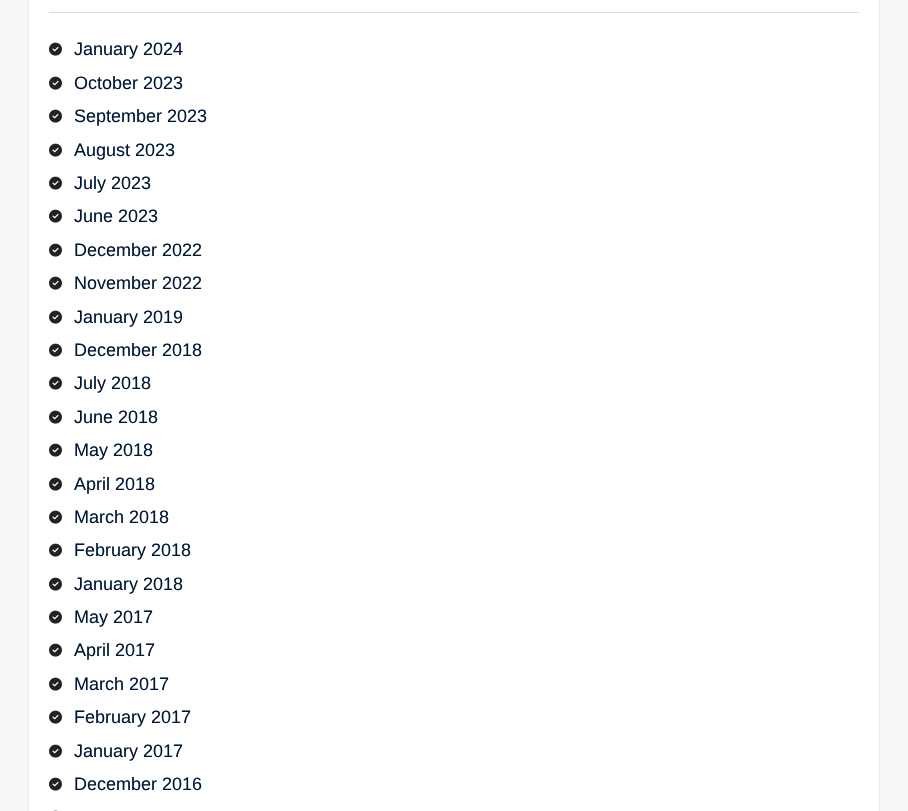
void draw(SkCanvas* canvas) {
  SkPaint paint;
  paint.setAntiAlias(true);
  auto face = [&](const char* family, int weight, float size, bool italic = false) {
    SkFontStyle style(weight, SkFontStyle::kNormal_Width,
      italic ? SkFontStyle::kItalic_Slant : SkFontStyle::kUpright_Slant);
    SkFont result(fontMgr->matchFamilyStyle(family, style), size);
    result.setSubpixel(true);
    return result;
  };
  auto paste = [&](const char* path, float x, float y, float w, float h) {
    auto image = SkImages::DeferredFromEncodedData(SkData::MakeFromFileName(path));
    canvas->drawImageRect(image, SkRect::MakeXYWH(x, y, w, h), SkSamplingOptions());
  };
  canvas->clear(0xfff7f8fa);
  paint.setColor(0xffcfcfcf);
  paint.setMaskFilter(SkMaskFilter::MakeBlur(kNormal_SkBlurStyle, 1));
  canvas->drawRect(SkRect::MakeXYWH(29, -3, 850, 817), paint);
  paint.setMaskFilter(nullptr);
  paint.setColor(0xffffffff);
  canvas->drawRect(SkRect::MakeXYWH(29, 0, 850, 811), paint);
  paint.setColor(0xffdddddd);
  canvas->drawRect(SkRect::MakeXYWH(49, 12, 810, 1), paint);
  paste("img/1.png", 49, 42, 13, 14);
  paste("img/1.png", 49, 76, 13, 14);
  paste("img/1.png", 49, 109, 13, 14);
  paste("img/1.png", 49, 143, 13, 14);
  paste("img/1.png", 49, 176, 13, 14);
  paste("img/1.png", 49, 209, 13, 14);
  paste("img/1.png", 49, 243, 13, 14);
  paste("img/1.png", 49, 276, 13, 14);
  paste("img/1.png", 49, 310, 13, 14);
  paste("img/1.png", 49, 343, 13, 14);
  paste("img/1.png", 49, 376, 13, 14);
  paste("img/1.png", 49, 410, 13, 14);
  paste("img/1.png", 49, 443, 13, 14);
  paste("img/1.png", 49, 477, 13, 14);
  paste("img/1.png", 49, 510, 13, 14);
  paste("img/1.png", 49, 543, 13, 14);
  paste("img/1.png", 49, 577, 13, 14);
  paste("img/1.png", 49, 610, 13, 14);
  paste("img/1.png", 49, 643, 13, 14);
  paste("img/1.png", 49, 677, 13, 14);
  paste("img/1.png", 49, 710, 13, 14);
  paste("img/1.png", 49, 744, 13, 14);
  paste("img/1.png", 49, 777, 13, 14);
  paste("img/2.png", 53, 810, 5, 1);
  auto f0 = face("Liberation Sans", 400, 18);
  paint.setColor(0xff001837);
  {
    const struct { const char* s; float x, y; } items[] = {
      {"January 2024", 74, 55},
      {"October 2023", 74, 89},
      {"September 2023", 74, 122},
      {"August 2023", 74, 156},
      {"July 2023", 74, 189},
      {"June 2023", 74, 222},
      {"December 2022", 74, 256},
      {"November 2022", 74, 289},
      {"January 2019", 74, 323},
      {"December 2018", 74, 356},
      {"July 2018", 74, 389},
      {"June 2018", 74, 423},
      {"May 2018", 74, 456},
      {"April 2018", 74, 490},
      {"March 2018", 74, 523},
      {"February 2018", 74, 556},
      {"January 2018", 74, 590},
      {"May 2017", 74, 623},
      {"April 2017", 74, 656},
      {"March 2017", 74, 690},
      {"February 2017", 74, 723},
      {"January 2017", 74, 757},
      {"December 2016", 74, 790},
    };
    for (auto [s, x, y] : items) {
      canvas->drawString(s, x, y, f0, paint);
    }
  }
}
